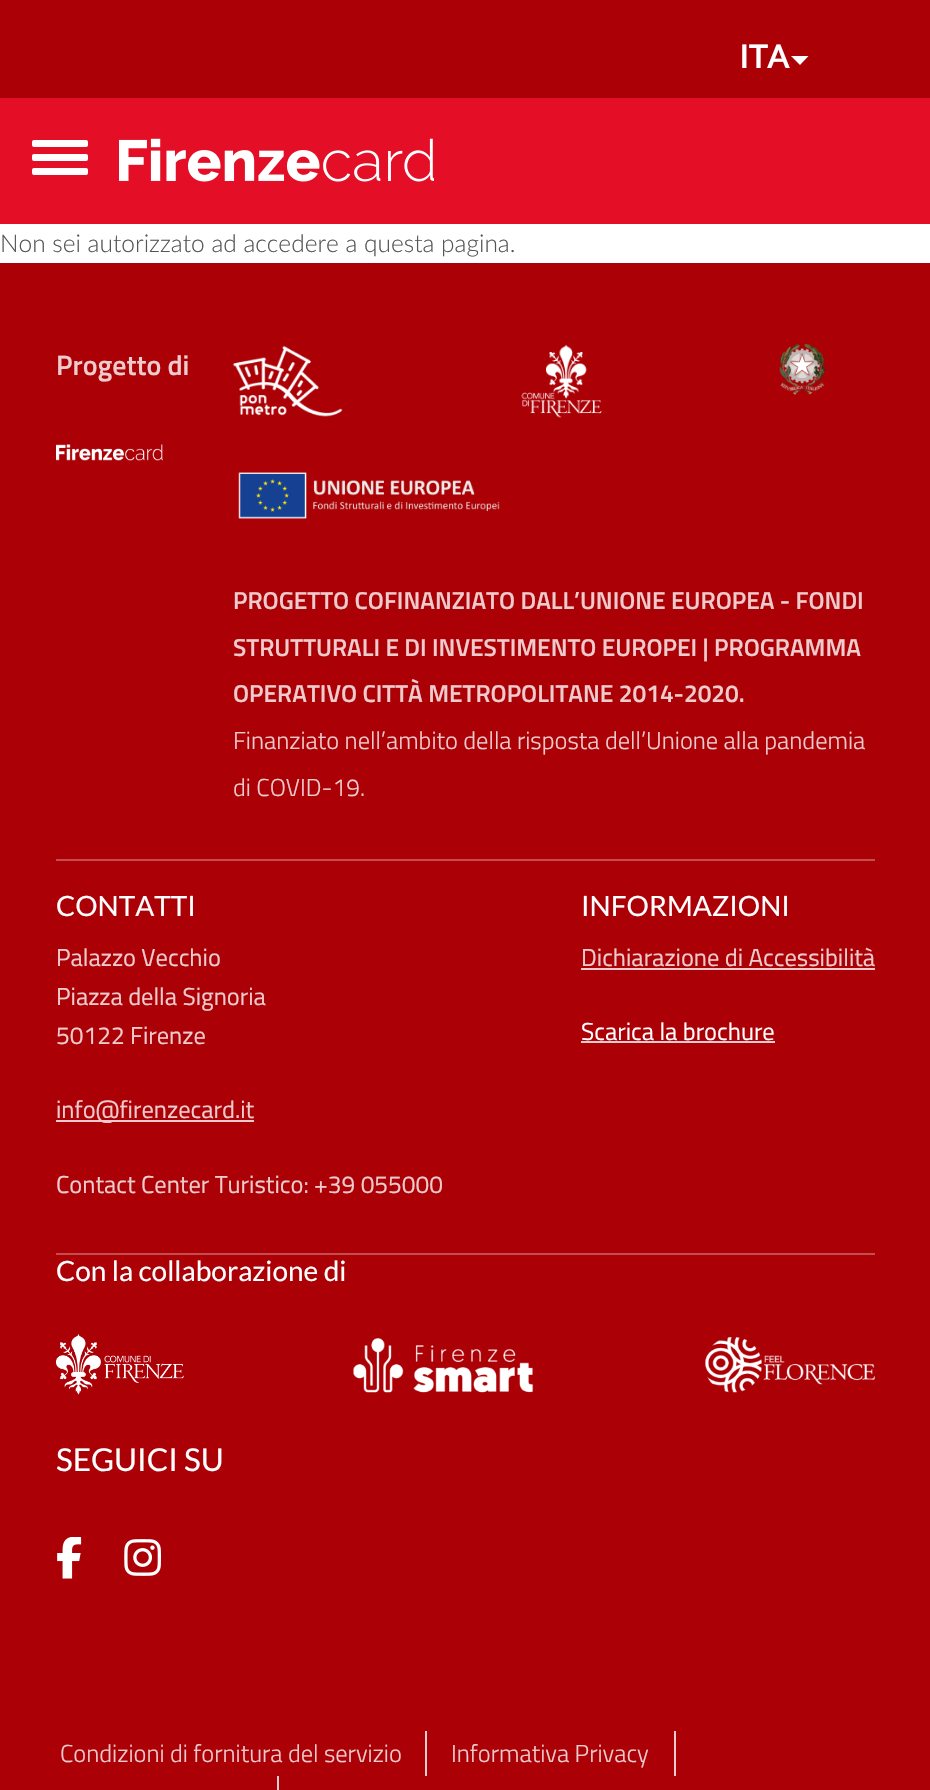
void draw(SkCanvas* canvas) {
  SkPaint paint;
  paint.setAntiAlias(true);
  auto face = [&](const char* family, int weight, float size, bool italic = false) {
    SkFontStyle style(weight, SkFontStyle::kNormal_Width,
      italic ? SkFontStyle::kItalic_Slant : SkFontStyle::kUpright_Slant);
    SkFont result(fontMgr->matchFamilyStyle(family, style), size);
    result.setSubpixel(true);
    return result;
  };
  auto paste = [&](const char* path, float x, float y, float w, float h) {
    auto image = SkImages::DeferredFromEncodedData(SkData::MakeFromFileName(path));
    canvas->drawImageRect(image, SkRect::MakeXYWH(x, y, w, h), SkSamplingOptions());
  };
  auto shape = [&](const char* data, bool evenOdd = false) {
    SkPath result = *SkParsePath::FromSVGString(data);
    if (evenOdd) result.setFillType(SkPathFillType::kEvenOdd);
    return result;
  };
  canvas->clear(0xffab0005);
  paint.setColor(0xffffffff);
  canvas->drawPath(shape("M791 56H808.5L800 65Z"), paint);
  paint.setColor(0xffe40e26);
  canvas->drawRect(SkRect::MakeXYWH(0, 98, 930, 126), paint);
  paint.setColor(0xffffffff);
  canvas->drawRoundRect(SkRect::MakeXYWH(32, 154, 56, 7), 2, 2, paint);
  canvas->drawRoundRect(SkRect::MakeXYWH(32, 140, 56, 7), 2, 2, paint);
  canvas->drawRoundRect(SkRect::MakeXYWH(32, 168, 56, 7), 2, 2, paint);
  paste("img/1.png", 119, 138, 315, 44);
  canvas->drawRect(SkRect::MakeXYWH(0, 224, 930, 39), paint);
  paint.setColor(0xffc44d50);
  canvas->drawRect(SkRect::MakeXYWH(56, 859, 819, 2), paint);
  paste("img/2.png", 56, 444, 107, 17);
  paste("img/3.png", 232, 345, 111, 72);
  paste("img/4.png", 521, 344, 81, 74);
  paste("img/5.png", 779, 343, 47, 52);
  paste("img/6.png", 238, 472, 262, 47);
  {
    const struct { float x, y, w, h; SkColor color; } items[] = {
      {56, 1253, 819, 2, 0xffc44d50},
      {56, 1120, 198, 2, 0xffeecccd},
      {581, 968, 294, 2, 0xffeecccd},
      {581, 1041, 194, 2, 0xffeecccd},
    };
    for (auto [x, y, w, h, color] : items) {
      paint.setColor(color);
      canvas->drawRect(SkRect::MakeXYWH(x, y, w, h), paint);
    }
  }
  paste("img/7.png", 56, 1333, 128, 62);
  paste("img/8.png", 353, 1338, 181, 55);
  paste("img/9.png", 705, 1336, 170, 57);
  paste("img/10.png", 57, 1537, 25, 42);
  paste("img/11.png", 124, 1539, 37, 37);
  {
    const struct { float x, y, w, h; SkColor color; } items[] = {
      {425, 1731, 2, 45, 0xffeecccd},
      {674, 1731, 2, 45, 0xffeecccd},
      {277, 1776, 2, 14, 0xffeecccd},
    };
    for (auto [x, y, w, h, color] : items) {
      paint.setColor(color);
      canvas->drawRect(SkRect::MakeXYWH(x, y, w, h), paint);
    }
  }
  auto f0 = face("Lato", 700, 31.5f);
  paint.setColor(0xffffffff);
  canvas->drawString("ITA", 739, 68, f0, paint);
  auto f1 = face("Lato", 300, 24.5f);
  paint.setColor(0xff555555);
  canvas->drawString("Non sei autorizzato ad accedere a questa pagina.", 0, 252, f1, paint);
  auto f2 = face("Titillium Web", 600, 28);
  paint.setColor(0xffeecccd);
  canvas->drawString("Progetto di", 56, 375, f2, paint);
  auto f3 = face("Titillium Web", 600, 24.5f);
  {
    const struct { const char* s; float x, y; } items[] = {
      {"PROGETTO COFINANZIATO DALL’UNIONE EUROPEA - FONDI", 233, 609},
      {"STRUTTURALI E DI INVESTIMENTO EUROPEI | PROGRAMMA", 233, 656},
      {"OPERATIVO CITTÀ METROPOLITANE 2014-2020.", 233, 702},
    };
    for (auto [s, x, y] : items) {
      canvas->drawString(s, x, y, f3, paint);
    }
  }
  auto f4 = face("Titillium Web", 300, 24.5f);
  canvas->drawString("Finanziato nell’ambito della risposta dell’Unione alla pandemia", 233, 749, f4, paint);
  canvas->drawString("di COVID-19.", 233, 796, f4, paint);
  auto f5 = face("Lato", 400, 28);
  paint.setColor(0xffffffff);
  canvas->drawString("CONTATTI", 56, 916, f5, paint);
  auto f6 = face("Titillium Web", 400, 24.5f);
  paint.setColor(0xffeecccd);
  {
    const struct { const char* s; float x, y; } items[] = {
      {"Palazzo Vecchio", 56, 966},
      {"Piazza della Signoria", 56, 1005},
      {"50122 Firenze", 56, 1044},
      {"info@firenzecard.it", 56, 1118},
      {"Contact Center Turistico: +39 055000", 56, 1193},
    };
    for (auto [s, x, y] : items) {
      canvas->drawString(s, x, y, f6, paint);
    }
  }
  paint.setColor(0xffffffff);
  canvas->drawString("INFORMAZIONI", 581, 916, f5, paint);
  paint.setColor(0xffeecccd);
  canvas->drawString("Dichiarazione di Accessibilità", 581, 966, f6, paint);
  paint.setColor(0xffffffff);
  canvas->drawString("Scarica la brochure", 581, 1040, f6, paint);
  canvas->drawString("Con la collaborazione di", 56, 1281, f5, paint);
  auto f7 = face("Lato", 400, 31.5f);
  canvas->drawString("SEGUICI SU", 56, 1471, f7, paint);
  paint.setColor(0xffeecccd);
  canvas->drawString("Condizioni di fornitura del servizio", 60, 1762, f4, paint);
  canvas->drawString("Informativa Privacy", 451, 1762, f4, paint);
}
